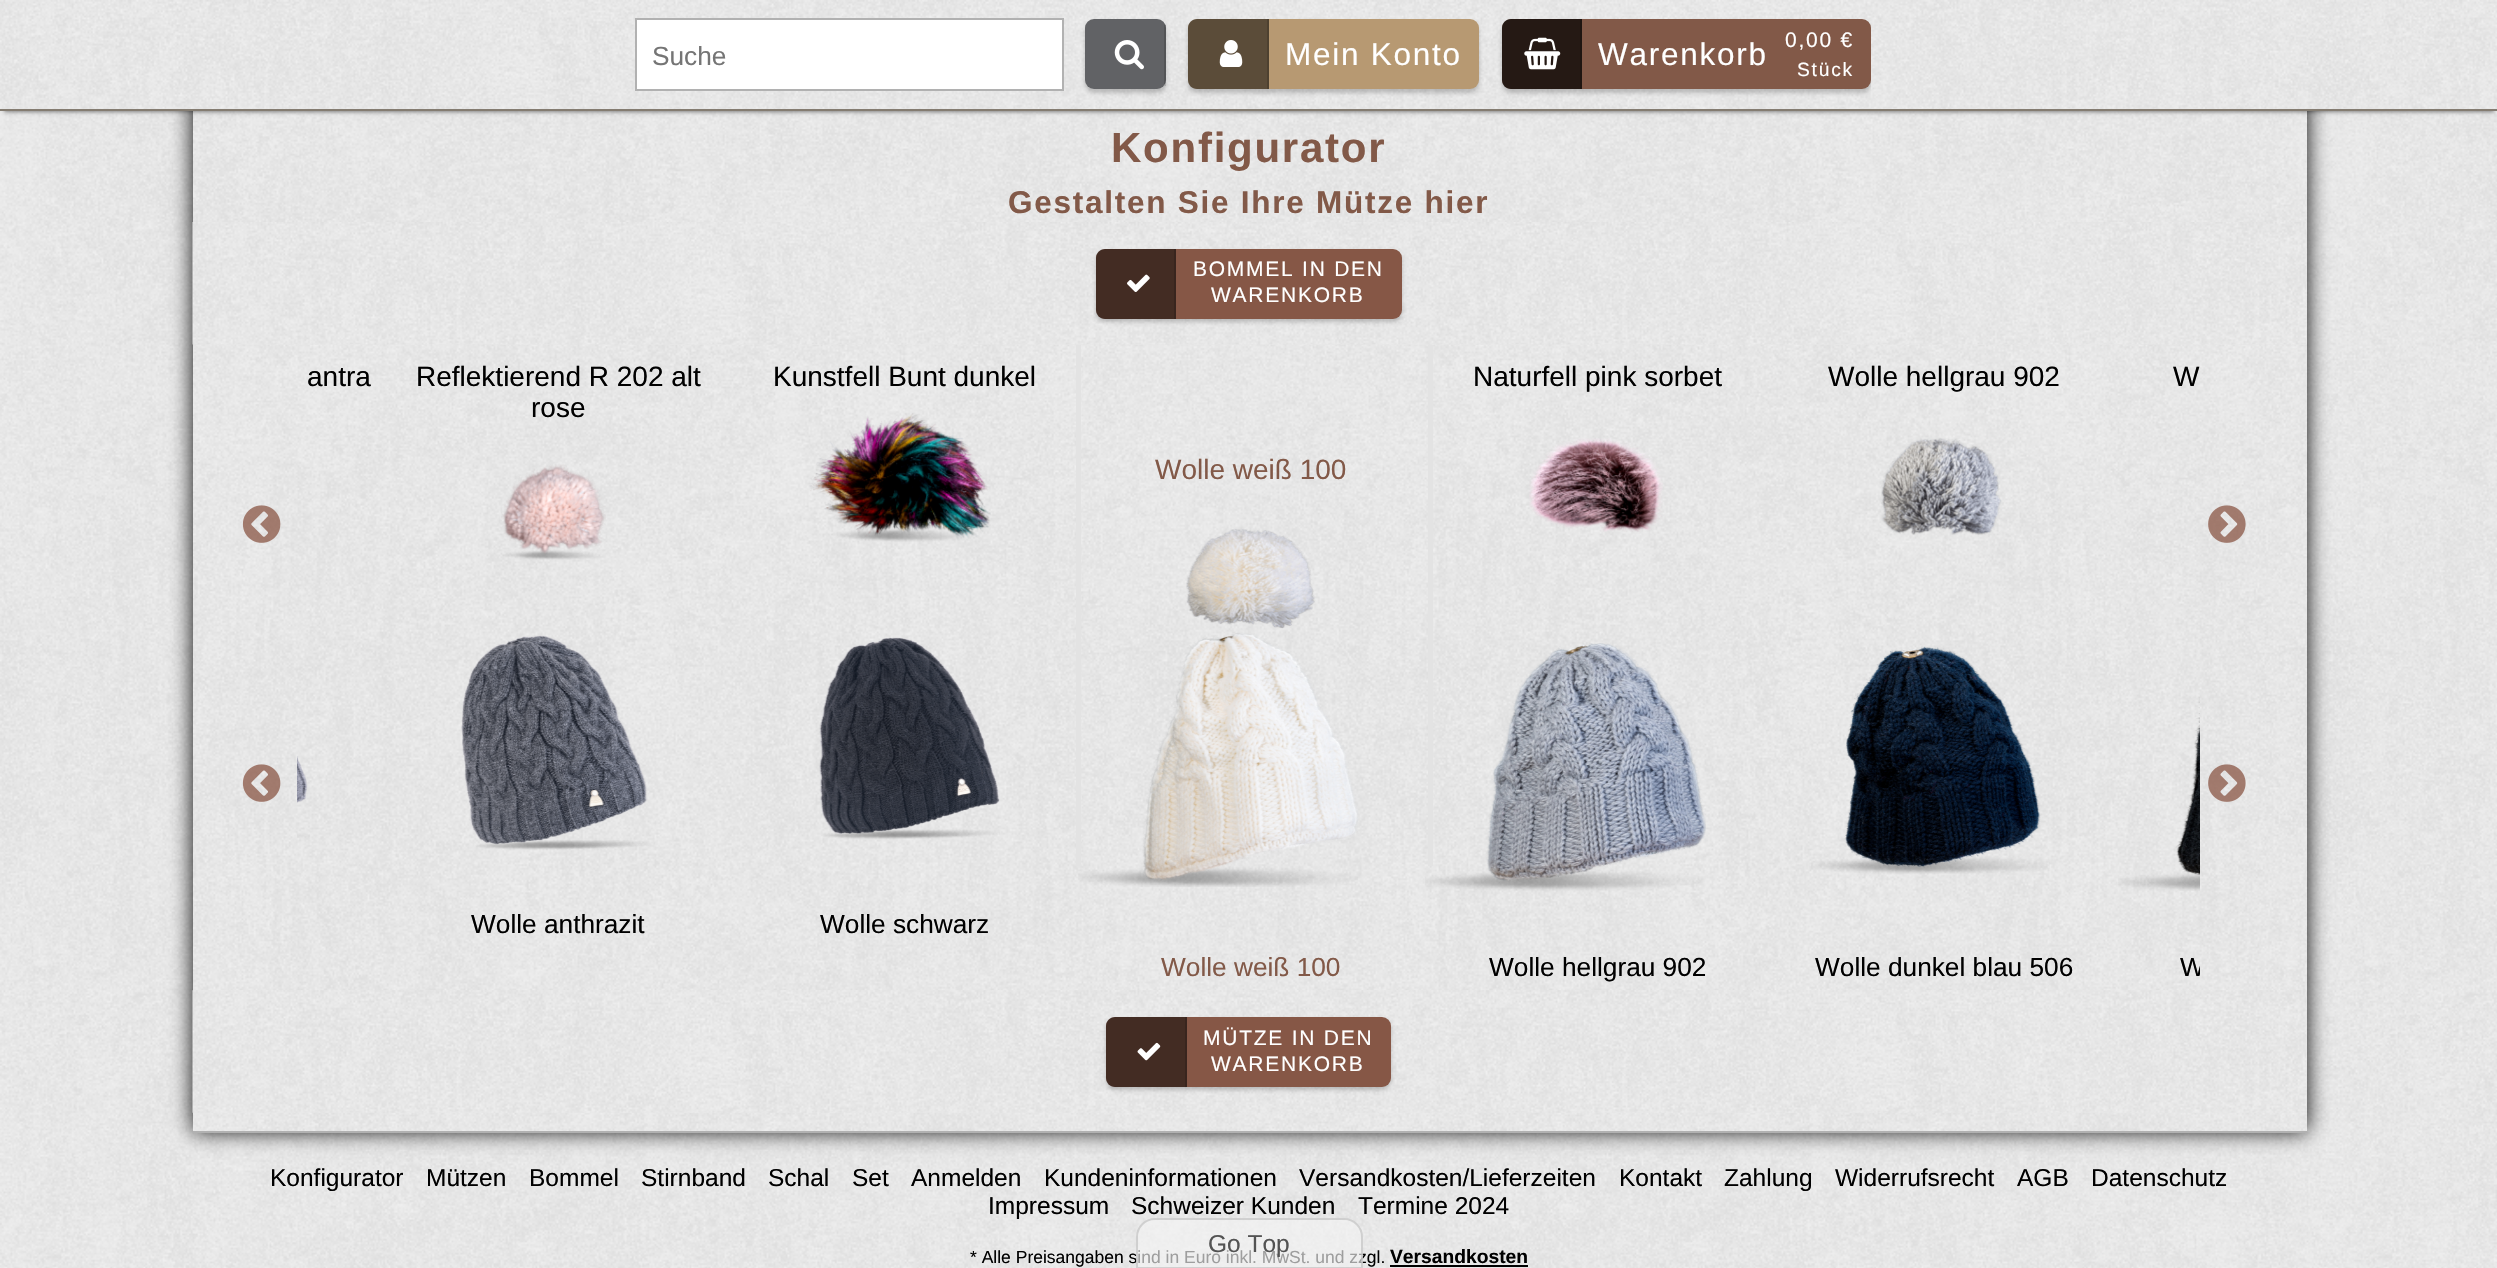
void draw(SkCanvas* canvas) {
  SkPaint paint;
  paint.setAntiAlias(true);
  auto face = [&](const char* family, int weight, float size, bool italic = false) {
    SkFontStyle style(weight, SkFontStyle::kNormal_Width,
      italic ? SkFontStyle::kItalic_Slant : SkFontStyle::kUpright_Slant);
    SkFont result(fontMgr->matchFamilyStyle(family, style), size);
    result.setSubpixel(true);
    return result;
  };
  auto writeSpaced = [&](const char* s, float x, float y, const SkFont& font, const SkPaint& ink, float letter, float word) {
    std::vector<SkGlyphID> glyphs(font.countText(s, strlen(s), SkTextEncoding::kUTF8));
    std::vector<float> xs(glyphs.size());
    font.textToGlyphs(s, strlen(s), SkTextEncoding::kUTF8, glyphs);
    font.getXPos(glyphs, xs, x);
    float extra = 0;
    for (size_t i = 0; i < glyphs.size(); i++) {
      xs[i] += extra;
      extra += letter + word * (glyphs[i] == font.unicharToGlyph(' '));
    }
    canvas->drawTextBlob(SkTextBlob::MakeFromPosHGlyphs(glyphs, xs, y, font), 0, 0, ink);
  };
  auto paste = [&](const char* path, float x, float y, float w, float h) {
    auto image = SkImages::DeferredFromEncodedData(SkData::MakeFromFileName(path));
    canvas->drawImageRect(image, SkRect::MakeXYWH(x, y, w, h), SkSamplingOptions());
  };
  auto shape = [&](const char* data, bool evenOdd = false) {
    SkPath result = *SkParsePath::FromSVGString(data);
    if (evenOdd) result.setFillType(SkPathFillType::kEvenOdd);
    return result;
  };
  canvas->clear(0xffffffff);
  paste("img/1.png", 0, 111, 2497, 1157);
  paint.setColor(0xff808080);
  paint.setMaskFilter(SkMaskFilter::MakeBlur(kNormal_SkBlurStyle, 2));
  canvas->drawRect(SkRect::MakeXYWH(4, 9, 2490, 103), paint);
  paint.setMaskFilter(nullptr);
  canvas->save();
  canvas->clipPath(shape("M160 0H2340V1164H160ZM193-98H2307V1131H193Z", true), true);
  paint.setColor(0xfc000000);
  paint.setMaskFilter(SkMaskFilter::MakeBlur(kNormal_SkBlurStyle, 10.5f));
  canvas->drawRect(SkRect::MakeXYWH(193, -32, 2114, 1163), paint);
  paint.setMaskFilter(nullptr);
  canvas->restore();
  paste("img/2.png", 0, 0, 2497, 109);
  paint.setColor(0xff847c71);
  canvas->drawRect(SkRect::MakeXYWH(0, 109, 2497, 2), paint);
  paint.setColor(0xffffffff);
  canvas->drawRect(SkRect::MakeXYWH(636, 19, 427, 71), paint);
  paint.setStroke(true);
  paint.setStrokeWidth(2);
  paint.setColor(0xffb1b1b1);
  canvas->drawRect(SkRect::MakeXYWH(636, 19, 427, 71), paint);
  paint.setStroke(false);
  paint.setColor(0x33000000);
  paint.setMaskFilter(SkMaskFilter::MakeBlur(kNormal_SkBlurStyle, 2));
  canvas->drawRoundRect(SkRect::MakeXYWH(1085, 23, 81, 70), 9, 9, paint);
  paint.setMaskFilter(nullptr);
  paint.setColor(0xffc3c5ca);
  canvas->drawRoundRect(SkRect::MakeXYWH(1085, 19, 81, 70), 9, 9, paint);
  paint.setColor(0x80000000);
  canvas->drawRoundRect(SkRect::MakeXYWH(1085, 19, 81, 70), 9, 9, paint);
  paint.setColor(0x26000000);
  canvas->drawRect(SkRect::MakeXYWH(1164, 25, 2, 61), paint);
  paste("img/3.png", 1114, 40, 30, 30);
  paint.setColor(0x33000000);
  paint.setMaskFilter(SkMaskFilter::MakeBlur(kNormal_SkBlurStyle, 2));
  canvas->drawRoundRect(SkRect::MakeXYWH(1188, 23, 291, 70), 9, 9, paint);
  paint.setMaskFilter(nullptr);
  paint.setColor(0xffb79972);
  canvas->drawRoundRect(SkRect::MakeXYWH(1188, 19, 291, 70), 9, 9, paint);
  paint.setColor(0x80000000);
  canvas->drawPath(shape("M1197 19H1269V89H1197C1192 89 1188 85 1188 80V28C1188 23 1192 19 1197 19Z"), paint);
  paint.setColor(0xff4e4130);
  canvas->drawRect(SkRect::MakeXYWH(1267, 19, 2, 70), paint);
  paste("img/4.png", 1219, 40, 24, 27);
  canvas->save();
  canvas->clipPath(shape("M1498 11H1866C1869 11 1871 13 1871 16V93C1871 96 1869 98 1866 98H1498C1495 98 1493 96 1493 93V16C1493 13 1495 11 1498 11Z"), true);
  paint.setColor(0x33000000);
  paint.setMaskFilter(SkMaskFilter::MakeBlur(kNormal_SkBlurStyle, 2));
  canvas->drawRoundRect(SkRect::MakeXYWH(1502, 23, 369, 70), 9, 9, paint);
  paint.setMaskFilter(nullptr);
  canvas->restore();
  paint.setColor(0xff825948);
  canvas->drawRoundRect(SkRect::MakeXYWH(1502, 19, 369, 70), 9, 9, paint);
  paint.setColor(0xb8000000);
  canvas->drawPath(shape("M1511 19H1582V89H1511C1506 89 1502 85 1502 80V28C1502 23 1506 19 1511 19Z"), paint);
  paint.setColor(0xff1f1511);
  canvas->drawRect(SkRect::MakeXYWH(1580, 19, 2, 70), paint);
  paste("img/5.png", 1524, 37, 37, 33);
  paste("img/6.png", 192, 222, 2115, 123);
  paint.setColor(0x33000000);
  paint.setMaskFilter(SkMaskFilter::MakeBlur(kNormal_SkBlurStyle, 2));
  canvas->drawRoundRect(SkRect::MakeXYWH(1096, 252, 306, 70), 9, 9, paint);
  paint.setMaskFilter(nullptr);
  paint.setColor(0xff865746);
  canvas->drawRoundRect(SkRect::MakeXYWH(1096, 249, 306, 70), 9, 9, paint);
  paint.setColor(0x80000000);
  canvas->drawPath(shape("M1105 249H1176V319H1105C1100 319 1096 315 1096 310V258C1096 253 1100 249 1105 249Z"), paint);
  paint.setColor(0xff39251e);
  canvas->drawRect(SkRect::MakeXYWH(1174, 249, 2, 70), paint);
  paste("img/7.png", 1127, 274, 23, 18);
  paint.setColor(0xffe3e3e3);
  canvas->drawRect(SkRect::MakeXYWH(1428, 345, 5, 521), paint);
  canvas->drawRect(SkRect::MakeXYWH(1076, 345, 5, 521), paint);
  paste("img/8.png", 501, 464, 105, 96);
  paste("img/9.png", 809, 413, 182, 129);
  paste("img/10.png", 1529, 438, 134, 94);
  paste("img/11.png", 1881, 438, 121, 97);
  paste("img/12.png", 1186, 528, 129, 101);
  paste("img/13.png", 242, 505, 39, 38);
  paste("img/14.png", 2208, 505, 38, 38);
  paste("img/15.png", 242, 764, 39, 38);
  paste("img/16.png", 2208, 764, 38, 38);
  paste("img/17.png", 297, 756, 13, 82);
  paste("img/18.png", 461, 635, 194, 215);
  paste("img/19.png", 819, 637, 181, 202);
  paste("img/20.png", 1078, 632, 280, 255);
  paste("img/21.png", 1425, 643, 281, 248);
  paste("img/22.png", 1811, 646, 239, 228);
  paste("img/23.png", 2118, 697, 82, 194);
  paste("img/24.png", 192, 990, 2115, 123);
  paint.setColor(0x33000000);
  paint.setMaskFilter(SkMaskFilter::MakeBlur(kNormal_SkBlurStyle, 2));
  canvas->drawRoundRect(SkRect::MakeXYWH(1106, 1020, 285, 70), 9, 9, paint);
  paint.setMaskFilter(nullptr);
  paint.setColor(0xff865746);
  canvas->drawRoundRect(SkRect::MakeXYWH(1106, 1017, 285, 70), 9, 9, paint);
  paint.setColor(0x80000000);
  canvas->drawPath(shape("M1115 1017H1187V1087H1115C1110 1087 1106 1083 1106 1078V1026C1106 1021 1110 1017 1115 1017Z"), paint);
  paint.setColor(0xff39251e);
  canvas->drawRect(SkRect::MakeXYWH(1185, 1017, 2, 70), paint);
  paste("img/25.png", 1137, 1042, 24, 19);
  paint.setColor(0xffb1b1b1);
  canvas->drawRect(SkRect::MakeXYWH(193, 1131, 2114, 2), paint);
  paint.setColor(0xff000000);
  canvas->drawRect(SkRect::MakeXYWH(1390, 1265, 138, 2), paint);
  auto f0 = face("Liberation Sans", 400, 26.25f);
  paint.setColor(0xff757575);
  canvas->drawString("Suche", 652, 65, f0, paint);
  auto f1 = face("Liberation Sans", 400, 31.5f);
  paint.setColor(0xffffffff);
  writeSpaced("Mein Konto", 1285, 65, f1, paint, 1.75f, 0);
  writeSpaced("Warenkorb", 1598, 65, f1, paint, 1.75f, 0);
  auto f2 = face("Liberation Sans", 400, 21);
  writeSpaced("0,00 €", 1785, 47, f2, paint, 1.75f, 0);
  auto f3 = face("Liberation Sans", 400, 19.25f);
  writeSpaced("Stück", 1797, 76, f3, paint, 1.75f, 0);
  auto f4 = face("Liberation Sans", 700, 42);
  paint.setColor(0xff825948);
  writeSpaced("Konfigurator", 1111, 162, f4, paint, 1.75f, 0);
  auto f5 = face("Liberation Sans", 700, 31.5f);
  writeSpaced("Gestalten Sie Ihre Mütze hier", 1008, 213, f5, paint, 1.75f, 0);
  paint.setColor(0xffffffff);
  writeSpaced("BOMMEL IN DEN", 1193, 276, f2, paint, 1.75f, 0);
  writeSpaced("WARENKORB", 1211, 302, f2, paint, 1.75f, 0);
  auto f6 = face("Liberation Sans", 400, 28);
  paint.setColor(0xff000000);
  {
    const struct { const char* s; float x, y; } items[] = {
      {"antra", 307, 386},
      {"Reflektierend R 202 alt", 416, 386},
      {"rose", 531, 417},
      {"Kunstfell Bunt dunkel", 773, 386},
      {"Naturfell pink sorbet", 1473, 386},
      {"Wolle hellgrau 902", 1828, 386},
      {"W", 2173, 386},
    };
    for (auto [s, x, y] : items) {
      canvas->drawString(s, x, y, f6, paint);
    }
  }
  paint.setColor(0xff825948);
  canvas->drawString("Wolle weiß 100", 1155, 479, f6, paint);
  paint.setColor(0xff000000);
  canvas->drawString("Wolle anthrazit", 471, 933, f0, paint);
  canvas->drawString("Wolle schwarz", 820, 933, f0, paint);
  paint.setColor(0xff825948);
  canvas->drawString("Wolle weiß 100", 1161, 976, f0, paint);
  paint.setColor(0xff000000);
  canvas->drawString("Wolle hellgrau 902", 1489, 976, f0, paint);
  canvas->drawString("Wolle dunkel blau 506", 1815, 976, f0, paint);
  canvas->save();
  canvas->clipRect(SkRect::MakeXYWH(298, 588, 1902, 394));
  canvas->drawString("W", 2180, 976, f0, paint);
  canvas->restore();
  paint.setColor(0xffffffff);
  writeSpaced("MÜTZE IN DEN", 1203, 1045, f2, paint, 1.75f, 0);
  writeSpaced("WARENKORB", 1211, 1071, f2, paint, 1.75f, 0);
  auto f7 = face("Liberation Sans", 400, 24.5f);
  paint.setColor(0xff000000);
  {
    const struct { const char* s; float x, y; } items[] = {
      {"Konfigurator", 270, 1186},
      {"Mützen", 426, 1186},
      {"Bommel", 529, 1186},
      {"Stirnband", 641, 1186},
      {"Schal", 768, 1186},
      {"Set", 852, 1186},
      {"Anmelden", 911, 1186},
      {"Kundeninformationen", 1044, 1186},
      {"Versandkosten/Lieferzeiten", 1299, 1186},
      {"Kontakt", 1619, 1186},
      {"Zahlung", 1724, 1186},
      {"Widerrufsrecht", 1835, 1186},
      {"AGB", 2017, 1186},
      {"Datenschutz", 2091, 1186},
      {"Impressum", 988, 1214},
      {"Schweizer Kunden", 1131, 1214},
      {"Termine 2024", 1358, 1214},
    };
    for (auto [s, x, y] : items) {
      canvas->drawString(s, x, y, f7, paint);
    }
  }
  auto f8 = face("Liberation Sans", 400, 17.5f);
  canvas->drawString("* Alle Preisangaben sind in Euro inkl. MwSt. und zzgl.", 970, 1263, f8, paint);
  paint.setColor(0xa6f3f3f3);
  canvas->drawPath(shape("M1155 1218H1344C1354.5 1218 1363 1226.5 1363 1237V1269H1136V1237C1136 1226.5 1144.5 1218 1155 1218Z"), paint);
  paint.setStroke(true);
  paint.setColor(0xa6bfbfbf);
  canvas->drawPath(shape("M1155 1219H1344C1354 1219 1362 1227 1362 1237V1268H1137V1237C1137 1227 1145 1219 1155 1219Z"), paint);
  paint.setStroke(false);
  paint.setColor(0xff535353);
  canvas->drawString("Go Top", 1208, 1252, f7, paint);
  auto f9 = face("Liberation Sans", 700, 19.25f);
  paint.setColor(0xff000000);
  canvas->drawString("Versandkosten", 1390, 1263, f9, paint);
}
